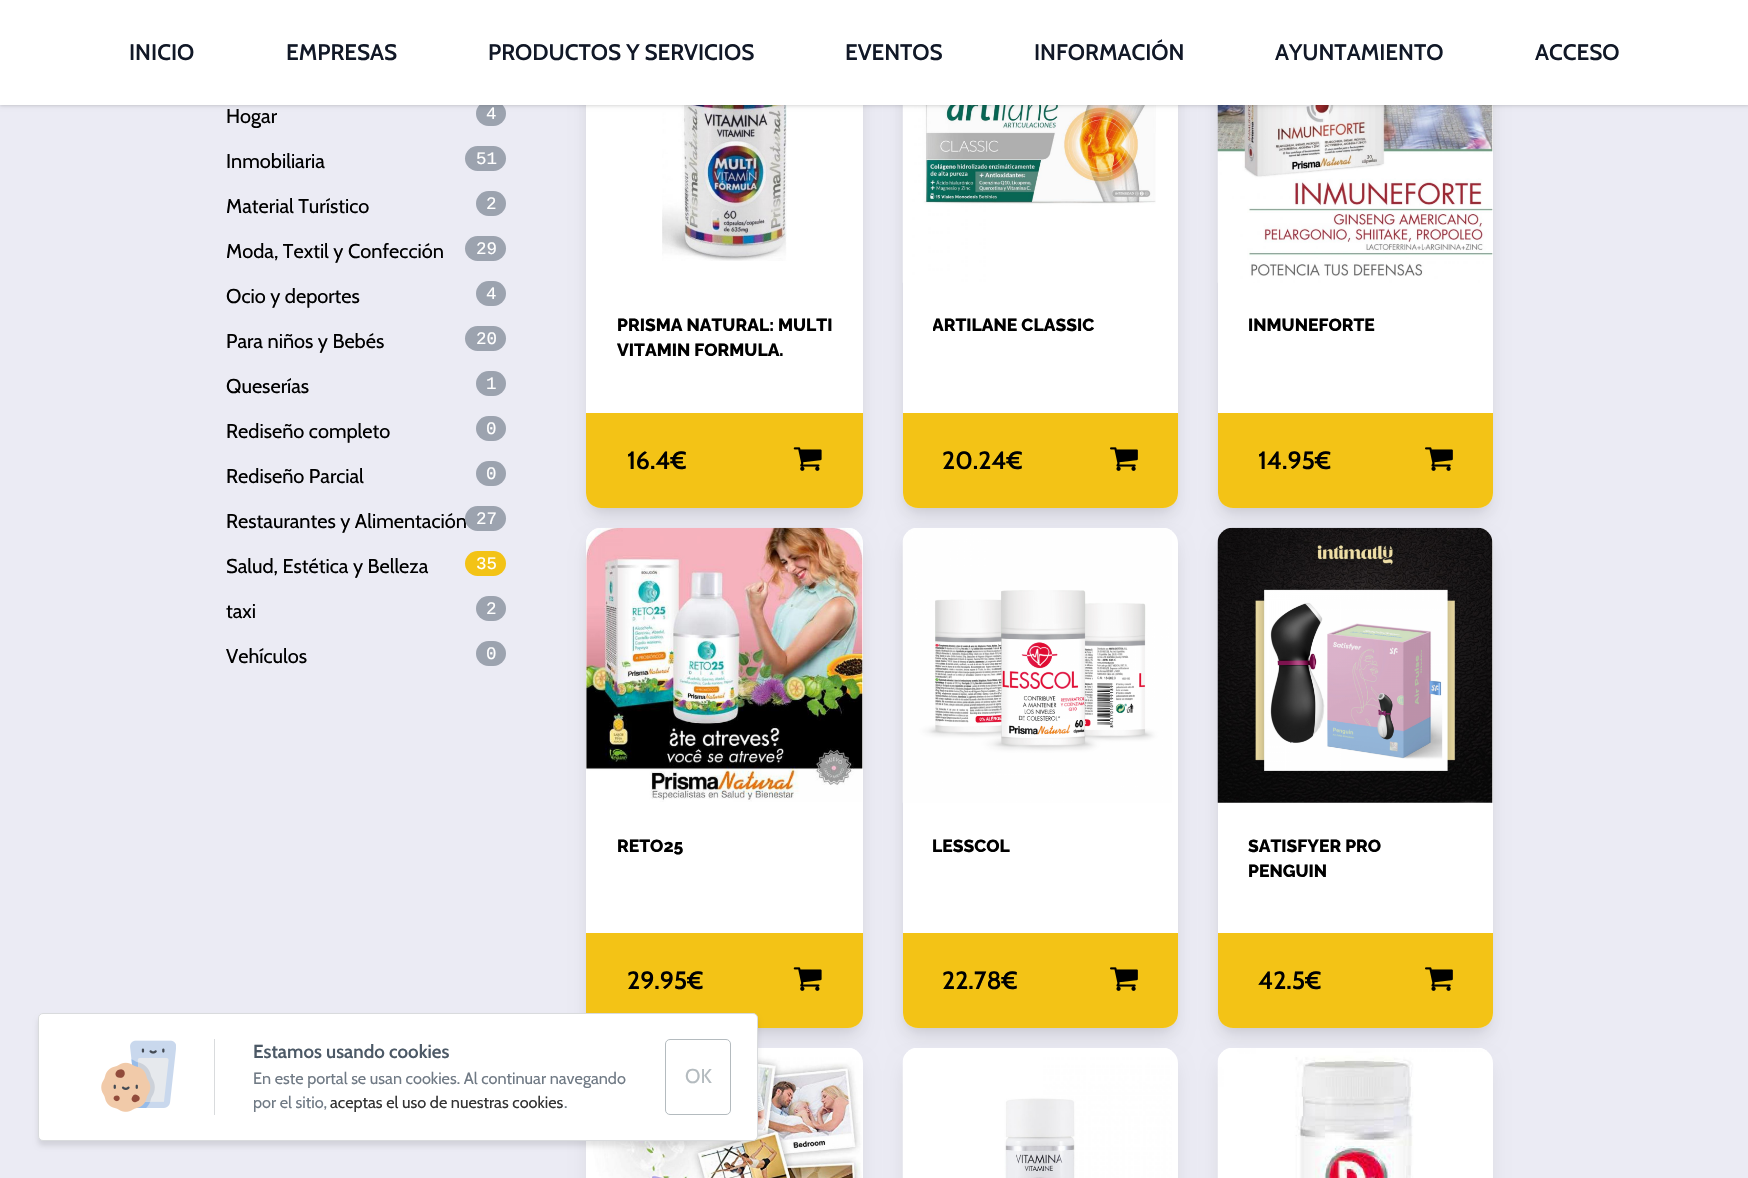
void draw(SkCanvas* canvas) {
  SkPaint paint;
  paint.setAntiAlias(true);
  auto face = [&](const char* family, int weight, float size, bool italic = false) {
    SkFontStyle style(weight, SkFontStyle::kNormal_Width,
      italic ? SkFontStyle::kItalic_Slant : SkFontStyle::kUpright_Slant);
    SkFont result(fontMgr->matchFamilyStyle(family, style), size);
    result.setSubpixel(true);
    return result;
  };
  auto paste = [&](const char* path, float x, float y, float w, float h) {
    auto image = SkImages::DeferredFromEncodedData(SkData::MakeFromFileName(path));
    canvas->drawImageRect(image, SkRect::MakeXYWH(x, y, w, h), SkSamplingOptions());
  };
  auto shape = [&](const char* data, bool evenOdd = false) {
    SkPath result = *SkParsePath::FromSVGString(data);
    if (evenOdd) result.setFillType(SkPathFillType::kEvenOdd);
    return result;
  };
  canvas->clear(0xffebebf4);
  paint.setColor(0xff9ca3af);
  canvas->drawRoundRect(SkRect::MakeXYWH(476, 101, 30, 25), 12.5f, 12.5f, paint);
  paint.setColor(0x0d000000);
  paint.setMaskFilter(SkMaskFilter::MakeBlur(kNormal_SkBlurStyle, 4));
  canvas->drawRoundRect(SkRect::MakeXYWH(589, 14, 271, 496), 13, 13, paint);
  paint.setMaskFilter(nullptr);
  paint.setColor(0x1a000000);
  paint.setMaskFilter(SkMaskFilter::MakeBlur(kNormal_SkBlurStyle, 9.5f));
  canvas->drawRoundRect(SkRect::MakeXYWH(590, 23, 269, 493), 11, 11, paint);
  paint.setMaskFilter(nullptr);
  paint.setColor(0xffffffff);
  canvas->drawRoundRect(SkRect::MakeXYWH(586, 6, 277, 502), 15, 15, paint);
  paste("img/1.png", 662, 105, 125, 156);
  paint.setColor(0x0d000000);
  paint.setMaskFilter(SkMaskFilter::MakeBlur(kNormal_SkBlurStyle, 4));
  canvas->drawRoundRect(SkRect::MakeXYWH(905, 14, 270, 496), 13, 13, paint);
  paint.setMaskFilter(nullptr);
  paint.setColor(0x1a000000);
  paint.setMaskFilter(SkMaskFilter::MakeBlur(kNormal_SkBlurStyle, 9.5f));
  canvas->drawRoundRect(SkRect::MakeXYWH(906, 23, 268, 493), 11, 11, paint);
  paint.setMaskFilter(nullptr);
  paint.setColor(0xffffffff);
  canvas->drawRoundRect(SkRect::MakeXYWH(903, 6, 275, 502), 15, 15, paint);
  paste("img/3.png", 902, 105, 254, 178);
  paint.setColor(0x0d000000);
  paint.setMaskFilter(SkMaskFilter::MakeBlur(kNormal_SkBlurStyle, 4));
  canvas->drawRoundRect(SkRect::MakeXYWH(1220, 14, 270, 496), 13, 13, paint);
  paint.setMaskFilter(nullptr);
  paint.setColor(0x1a000000);
  paint.setMaskFilter(SkMaskFilter::MakeBlur(kNormal_SkBlurStyle, 9.5f));
  canvas->drawRoundRect(SkRect::MakeXYWH(1221, 23, 268, 493), 11, 11, paint);
  paint.setMaskFilter(nullptr);
  paint.setColor(0xffffffff);
  canvas->drawRoundRect(SkRect::MakeXYWH(1218, 6, 275, 502), 15, 15, paint);
  paste("img/5.png", 1217, 105, 276, 178);
  paint.setColor(0x0f000000);
  paint.setMaskFilter(SkMaskFilter::MakeBlur(kNormal_SkBlurStyle, 1));
  canvas->drawRect(SkRect::MakeXYWH(0, 1, 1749, 105), paint);
  paint.setMaskFilter(nullptr);
  paint.setColor(0x1a000000);
  paint.setMaskFilter(SkMaskFilter::MakeBlur(kNormal_SkBlurStyle, 2));
  canvas->drawRect(SkRect::MakeXYWH(0, 1, 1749, 105), paint);
  paint.setMaskFilter(nullptr);
  paint.setColor(0xffffffff);
  canvas->drawRect(SkRect::MakeXYWH(0, 0, 1748, 105), paint);
  paint.setColor(0xff9ca3af);
  canvas->drawRoundRect(SkRect::MakeXYWH(465, 146, 41, 25), 12.5f, 12.5f, paint);
  canvas->drawRoundRect(SkRect::MakeXYWH(476, 191, 30, 25), 12.5f, 12.5f, paint);
  canvas->drawRoundRect(SkRect::MakeXYWH(465, 236, 41, 25), 12.5f, 12.5f, paint);
  canvas->drawRoundRect(SkRect::MakeXYWH(476, 281, 30, 25), 12.5f, 12.5f, paint);
  canvas->drawRoundRect(SkRect::MakeXYWH(465, 326, 41, 25), 12.5f, 12.5f, paint);
  canvas->drawRoundRect(SkRect::MakeXYWH(476, 371, 30, 25), 12.5f, 12.5f, paint);
  canvas->drawRoundRect(SkRect::MakeXYWH(476, 416, 30, 25), 12.5f, 12.5f, paint);
  canvas->drawRoundRect(SkRect::MakeXYWH(476, 461, 30, 25), 12.5f, 12.5f, paint);
  paint.setColor(0xfff3c316);
  canvas->drawRoundRect(SkRect::MakeXYWH(465, 551, 41, 25), 12.5f, 12.5f, paint);
  paint.setColor(0xff9ca3af);
  canvas->drawRoundRect(SkRect::MakeXYWH(476, 596, 30, 25), 12.5f, 12.5f, paint);
  canvas->drawRoundRect(SkRect::MakeXYWH(476, 641, 30, 25), 12.5f, 12.5f, paint);
  paint.setColor(0xfff3c316);
  canvas->drawPath(shape("M586 413H863V493C863 501.5 856.5 508 848 508H601C592.5 508 586 501.5 586 493Z"), paint);
  paste("img/2.png", 793, 447, 29, 24);
  canvas->drawPath(shape("M903 413H1178V493C1178 501.5 1171.5 508 1163 508H918C909.5 508 903 501.5 903 493Z"), paint);
  paste("img/4.png", 1110, 447, 28, 24);
  canvas->drawPath(shape("M1218 413H1493V493C1493 501.5 1486.5 508 1478 508H1233C1224.5 508 1218 501.5 1218 493Z"), paint);
  paste("img/4.png", 1425, 447, 28, 24);
  paint.setColor(0x0d000000);
  paint.setMaskFilter(SkMaskFilter::MakeBlur(kNormal_SkBlurStyle, 4));
  canvas->drawRoundRect(SkRect::MakeXYWH(589, 535, 271, 495), 13, 13, paint);
  paint.setMaskFilter(nullptr);
  paint.setColor(0x1a000000);
  paint.setMaskFilter(SkMaskFilter::MakeBlur(kNormal_SkBlurStyle, 9.5f));
  canvas->drawRoundRect(SkRect::MakeXYWH(590, 544, 269, 492), 11, 11, paint);
  paint.setMaskFilter(nullptr);
  paint.setColor(0xffffffff);
  canvas->drawRoundRect(SkRect::MakeXYWH(586, 528, 277, 500), 15, 15, paint);
  paste("img/6.png", 586, 527, 277, 275);
  paint.setColor(0xfff3c316);
  canvas->drawPath(shape("M586 933H863V1013C863 1021.5 856.5 1028 848 1028H601C592.5 1028 586 1021.5 586 1013Z"), paint);
  paste("img/2.png", 793, 967, 29, 24);
  paint.setColor(0x0d000000);
  paint.setMaskFilter(SkMaskFilter::MakeBlur(kNormal_SkBlurStyle, 4));
  canvas->drawRoundRect(SkRect::MakeXYWH(905, 535, 270, 495), 13, 13, paint);
  paint.setMaskFilter(nullptr);
  paint.setColor(0x1a000000);
  paint.setMaskFilter(SkMaskFilter::MakeBlur(kNormal_SkBlurStyle, 9.5f));
  canvas->drawRoundRect(SkRect::MakeXYWH(906, 544, 268, 492), 11, 11, paint);
  paint.setMaskFilter(nullptr);
  paint.setColor(0xffffffff);
  canvas->drawRoundRect(SkRect::MakeXYWH(903, 528, 275, 500), 15, 15, paint);
  paste("img/7.png", 902, 528, 270, 275);
  paint.setColor(0xfff3c316);
  canvas->drawPath(shape("M903 933H1178V1013C1178 1021.5 1171.5 1028 1163 1028H918C909.5 1028 903 1021.5 903 1013Z"), paint);
  paste("img/4.png", 1110, 967, 28, 24);
  paint.setColor(0x0d000000);
  paint.setMaskFilter(SkMaskFilter::MakeBlur(kNormal_SkBlurStyle, 4));
  canvas->drawRoundRect(SkRect::MakeXYWH(1220, 535, 270, 495), 13, 13, paint);
  paint.setMaskFilter(nullptr);
  paint.setColor(0x1a000000);
  paint.setMaskFilter(SkMaskFilter::MakeBlur(kNormal_SkBlurStyle, 9.5f));
  canvas->drawRoundRect(SkRect::MakeXYWH(1221, 544, 268, 492), 11, 11, paint);
  paint.setMaskFilter(nullptr);
  paint.setColor(0xffffffff);
  canvas->drawRoundRect(SkRect::MakeXYWH(1218, 528, 275, 500), 15, 15, paint);
  paste("img/8.png", 1217, 527, 276, 276);
  paint.setColor(0xfff3c316);
  canvas->drawPath(shape("M1218 933H1493V1013C1493 1021.5 1486.5 1028 1478 1028H1233C1224.5 1028 1218 1021.5 1218 1013Z"), paint);
  paste("img/4.png", 1425, 967, 28, 24);
  paint.setColor(0x1a000000);
  paint.setMaskFilter(SkMaskFilter::MakeBlur(kNormal_SkBlurStyle, 9.5f));
  canvas->drawRoundRect(SkRect::MakeXYWH(590, 1064, 269, 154), 11, 11, paint);
  paint.setMaskFilter(nullptr);
  paint.setColor(0xffffffff);
  canvas->drawRoundRect(SkRect::MakeXYWH(586, 1048, 277, 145), 15, 15, paint);
  paste("img/9.png", 586, 1048, 276, 130);
  paint.setColor(0x1a000000);
  paint.setMaskFilter(SkMaskFilter::MakeBlur(kNormal_SkBlurStyle, 9.5f));
  canvas->drawRoundRect(SkRect::MakeXYWH(906, 1064, 268, 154), 11, 11, paint);
  paint.setMaskFilter(nullptr);
  paint.setColor(0xffffffff);
  canvas->drawRoundRect(SkRect::MakeXYWH(903, 1048, 275, 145), 15, 15, paint);
  paste("img/10.png", 902, 1048, 270, 130);
  paint.setColor(0x1a000000);
  paint.setMaskFilter(SkMaskFilter::MakeBlur(kNormal_SkBlurStyle, 9.5f));
  canvas->drawRoundRect(SkRect::MakeXYWH(1221, 1064, 268, 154), 11, 11, paint);
  paint.setMaskFilter(nullptr);
  paint.setColor(0xffffffff);
  canvas->drawRoundRect(SkRect::MakeXYWH(1218, 1048, 275, 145), 15, 15, paint);
  paste("img/11.png", 1217, 1048, 270, 130);
  paint.setColor(0x1a000000);
  paint.setMaskFilter(SkMaskFilter::MakeBlur(kNormal_SkBlurStyle, 2.5f));
  canvas->drawRoundRect(SkRect::MakeXYWH(38, 1018, 720, 128), 5, 5, paint);
  paint.setMaskFilter(nullptr);
  paint.setColor(0xffffffff);
  canvas->drawRoundRect(SkRect::MakeXYWH(38.5f, 1013.5f, 719, 127), 4.5f, 4.5f, paint);
  paint.setStroke(true);
  paint.setStrokeWidth(1);
  paint.setColor(0xffd9dbdd);
  canvas->drawRoundRect(SkRect::MakeXYWH(38.5f, 1013.5f, 719, 127), 4.5f, 4.5f, paint);
  paint.setStroke(false);
  canvas->drawRect(SkRect::MakeXYWH(214, 1039, 1, 76), paint);
  paste("img/12.png", 101, 1040, 75, 72);
  paint.setStroke(true);
  paint.setColor(0xffb4bbbf);
  canvas->drawRoundRect(SkRect::MakeXYWH(665.5f, 1039.5f, 65, 75), 4.5f, 4.5f, paint);
  auto f0 = face("Cabin", 600, 22.5f);
  paint.setStroke(false);
  paint.setColor(0xff111827);
  {
    const struct { const char* s; float x, y; } items[] = {
      {"INICIO", 129, 60},
      {"EMPRESAS", 286, 60},
      {"PRODUCTOS Y SERVICIOS", 488, 60},
      {"EVENTOS", 845, 60},
      {"INFORMACIÓN", 1034, 60},
      {"AYUNTAMIENTO", 1275, 60},
      {"ACCESO", 1535, 60},
    };
    for (auto [s, x, y] : items) {
      canvas->drawString(s, x, y, f0, paint);
    }
  }
  auto f1 = face("Cabin", 400, 20);
  paint.setColor(0xff000000);
  canvas->drawString("Hogar", 226, 123, f1, paint);
  auto f2 = face("Liberation Mono", 400, 17.5f);
  paint.setColor(0xffffffff);
  canvas->drawString("4", 486, 119, f2, paint);
  paint.setColor(0xff000000);
  canvas->drawString("Inmobiliaria", 226, 168, f1, paint);
  paint.setColor(0xffffffff);
  canvas->drawString("51", 476, 164, f2, paint);
  paint.setColor(0xff000000);
  canvas->drawString("Material Turístico", 226, 213, f1, paint);
  paint.setColor(0xffffffff);
  canvas->drawString("2", 486, 209, f2, paint);
  paint.setColor(0xff000000);
  canvas->drawString("Moda, Textil y Confección", 226, 258, f1, paint);
  paint.setColor(0xffffffff);
  canvas->drawString("29", 476, 254, f2, paint);
  paint.setColor(0xff000000);
  canvas->drawString("Ocio y deportes", 226, 303, f1, paint);
  paint.setColor(0xffffffff);
  canvas->drawString("4", 486, 299, f2, paint);
  paint.setColor(0xff000000);
  canvas->drawString("Para niños y Bebés", 226, 348, f1, paint);
  paint.setColor(0xffffffff);
  canvas->drawString("20", 476, 344, f2, paint);
  paint.setColor(0xff000000);
  canvas->drawString("Queserías", 226, 393, f1, paint);
  paint.setColor(0xffffffff);
  canvas->drawString("1", 486, 389, f2, paint);
  paint.setColor(0xff000000);
  canvas->drawString("Rediseño completo", 226, 438, f1, paint);
  paint.setColor(0xffffffff);
  canvas->drawString("0", 486, 434, f2, paint);
  paint.setColor(0xff000000);
  canvas->drawString("Rediseño Parcial", 226, 483, f1, paint);
  paint.setColor(0xffffffff);
  canvas->drawString("0", 486, 479, f2, paint);
  paint.setColor(0xff000000);
  canvas->drawString("Restaurantes y Alimentación", 226, 528, f1, paint);
  paint.setColor(0xff9ca3af);
  canvas->drawRoundRect(SkRect::MakeXYWH(465, 506, 41, 25), 12.5f, 12.5f, paint);
  paint.setColor(0xffffffff);
  canvas->drawString("27", 476, 524, f2, paint);
  paint.setColor(0xff000000);
  canvas->drawString("Salud, Estética y Belleza", 226, 573, f1, paint);
  paint.setColor(0xffffffff);
  canvas->drawString("35", 476, 569, f2, paint);
  paint.setColor(0xff000000);
  canvas->drawString("taxi", 226, 618, f1, paint);
  paint.setColor(0xffffffff);
  canvas->drawString("2", 486, 614, f2, paint);
  paint.setColor(0xff000000);
  canvas->drawString("Vehículos", 226, 663, f1, paint);
  paint.setColor(0xffffffff);
  canvas->drawString("0", 486, 659, f2, paint);
  auto f3 = face("Raleway", 800, 17.5f);
  paint.setColor(0xff000000);
  canvas->drawString("PRISMA NATURAL: MULTI", 617, 331, f3, paint);
  canvas->drawString("VITAMIN FORMULA.", 617, 356, f3, paint);
  auto f4 = face("Cabin", 600, 25);
  canvas->drawString("16.4€", 627, 469, f4, paint);
  canvas->save();
  canvas->clipRect(SkRect::MakeXYWH(933, 313, 215, 70));
  canvas->drawString("ARTILANE CLASSIC", 932, 331, f3, paint);
  canvas->restore();
  canvas->drawString("20.24€", 942, 469, f4, paint);
  canvas->drawString("INMUNEFORTE", 1248, 331, f3, paint);
  canvas->drawString("14.95€", 1258, 469, f4, paint);
  canvas->drawString("RETO25", 617, 852, f3, paint);
  canvas->drawString("29.95€", 627, 989, f4, paint);
  canvas->drawString("LESSCOL", 932, 852, f3, paint);
  canvas->drawString("22.78€", 942, 989, f4, paint);
  canvas->drawString("SATISFYER PRO", 1248, 852, f3, paint);
  canvas->drawString("PENGUIN", 1248, 877, f3, paint);
  canvas->drawString("42.5€", 1258, 989, f4, paint);
  auto f5 = face("Cabin", 600, 18.75f);
  paint.setColor(0xff4c5966);
  canvas->drawString("Estamos usando cookies", 253, 1058, f5, paint);
  auto f6 = face("Cabin", 400, 16.25f);
  paint.setColor(0xff707a85);
  canvas->drawString("En este portal se usan cookies. Al continuar navegando", 253, 1084, f6, paint);
  canvas->drawString("por el sitio,", 253, 1108, f6, paint);
  paint.setColor(0xff333333);
  canvas->drawString("aceptas el uso de nuestras cookies", 330, 1108, f6, paint);
  paint.setColor(0xff707a85);
  canvas->drawString(".", 564, 1108, f6, paint);
  paint.setColor(0xffb4bbbf);
  canvas->drawString("OK", 685, 1083, f1, paint);
}
